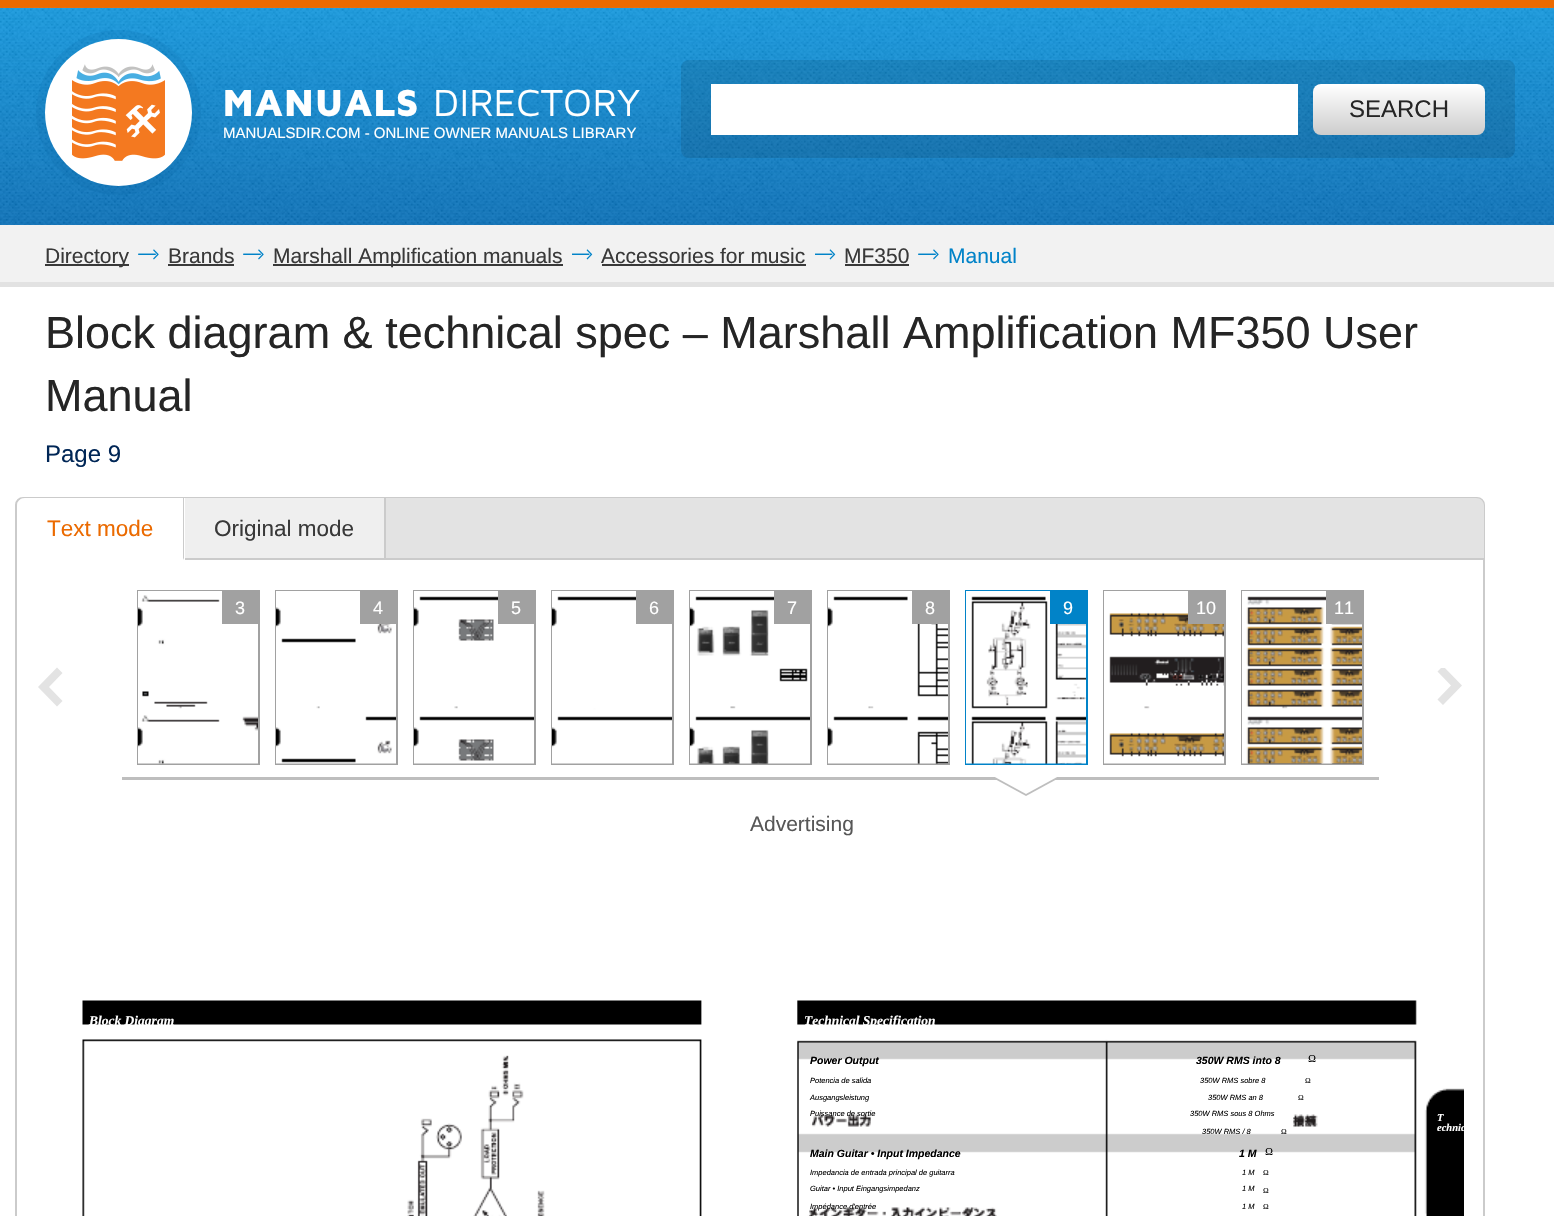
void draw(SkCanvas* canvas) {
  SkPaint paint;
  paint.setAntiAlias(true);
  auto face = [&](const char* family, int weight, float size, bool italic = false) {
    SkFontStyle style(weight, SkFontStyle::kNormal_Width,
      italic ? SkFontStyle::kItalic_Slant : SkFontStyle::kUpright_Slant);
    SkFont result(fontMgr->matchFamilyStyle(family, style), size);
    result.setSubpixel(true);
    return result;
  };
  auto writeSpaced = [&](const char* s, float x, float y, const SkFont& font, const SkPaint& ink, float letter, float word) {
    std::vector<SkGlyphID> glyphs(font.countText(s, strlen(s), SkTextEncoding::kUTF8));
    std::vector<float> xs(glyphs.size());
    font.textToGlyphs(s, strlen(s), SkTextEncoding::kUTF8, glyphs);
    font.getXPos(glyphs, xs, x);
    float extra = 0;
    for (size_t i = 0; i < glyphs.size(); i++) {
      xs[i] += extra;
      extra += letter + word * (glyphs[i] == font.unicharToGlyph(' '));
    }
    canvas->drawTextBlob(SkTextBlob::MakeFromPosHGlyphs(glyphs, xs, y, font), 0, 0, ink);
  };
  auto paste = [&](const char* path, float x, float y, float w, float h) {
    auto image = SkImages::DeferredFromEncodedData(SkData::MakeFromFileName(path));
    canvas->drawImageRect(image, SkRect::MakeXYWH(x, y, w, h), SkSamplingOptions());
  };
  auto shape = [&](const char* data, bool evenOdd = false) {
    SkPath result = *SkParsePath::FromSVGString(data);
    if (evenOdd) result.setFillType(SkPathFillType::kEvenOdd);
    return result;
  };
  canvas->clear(0xffffffff);
  {
    const SkColor colors[] = {0xff0e96de, 0xff046db7};
    const float stops[] = {0, 1};
    const SkPoint ends[] = {{777, 7.5f}, {777, 225}};
    paint.setShader(SkGradientShader::MakeLinear(ends, colors, stops, 2, SkTileMode::kClamp));
    paint.setAlpha(255);
  }
  canvas->drawRect(SkRect::MakeXYWH(0, 8, 1554, 217), paint);
  paint.setShader(nullptr);
  paint.setColor(0xffeb6a00);
  canvas->drawRect(SkRect::MakeXYWH(0, 0, 1554, 8), paint);
  paste("img/1.png", 0, 7, 1554, 218);
  paint.setColor(0xffffffff);
  canvas->drawCircle(118.5f, 112.5f, 73.5f, paint);
  paint.setStroke(true);
  paint.setStrokeWidth(9);
  paint.setColor(0x24005a99);
  canvas->drawCircle(118.5f, 112.5f, 78, paint);
  paste("img/2.png", 72, 64, 93, 97);
  paint.setStroke(false);
  paint.setColor(0x1a000000);
  canvas->drawRoundRect(SkRect::MakeXYWH(681, 60, 834, 98), 8, 8, paint);
  paint.setColor(0xffffffff);
  canvas->drawRect(SkRect::MakeXYWH(711, 84, 587, 51), paint);
  {
    const SkColor colors[] = {0xffcccccc, 0xffffffff};
    const float stops[] = {0, 1};
    const SkPoint ends[] = {{1399, 135}, {1399, 84}};
    paint.setShader(SkGradientShader::MakeLinear(ends, colors, stops, 2, SkTileMode::kClamp));
    paint.setAlpha(255);
  }
  canvas->drawRoundRect(SkRect::MakeXYWH(1313, 84, 172, 51), 8, 8, paint);
  paint.setShader(nullptr);
  {
    const struct { float x, y, w, h; SkColor color; } items[] = {
      {0, 225, 1554, 57, 0xfff2f2f2},
      {0, 282, 1554, 5, 0xffe2e2e2},
      {45, 264, 84, 2, 0xff393939},
    };
    for (auto [x, y, w, h, color] : items) {
      paint.setColor(color);
      canvas->drawRect(SkRect::MakeXYWH(x, y, w, h), paint);
    }
  }
  paste("img/3.png", 138, 249, 21, 11);
  canvas->drawRect(SkRect::MakeXYWH(168, 264, 66, 2), paint);
  paste("img/3.png", 243, 249, 21, 11);
  canvas->drawRect(SkRect::MakeXYWH(273, 264, 290, 2), paint);
  paste("img/4.png", 572, 249, 21, 11);
  canvas->drawRect(SkRect::MakeXYWH(602, 264, 204, 2), paint);
  paste("img/4.png", 815, 249, 21, 11);
  canvas->drawRect(SkRect::MakeXYWH(845, 264, 64, 2), paint);
  paste("img/3.png", 918, 249, 21, 11);
  paint.setStroke(true);
  paint.setStrokeWidth(2);
  paint.setColor(0xffcbcbcb);
  canvas->drawRoundRect(SkRect::MakeXYWH(16, 498, 1468, 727), 7, 7, paint);
  paint.setStroke(false);
  paint.setColor(0xffe3e3e3);
  canvas->drawPath(shape("M25 498H1476C1480.5 498 1484 501.5 1484 506V560H17V506C17 501.5 20.5 498 25 498Z"), paint);
  paint.setColor(0xffcbcbcb);
  canvas->drawRect(SkRect::MakeXYWH(386, 558, 1098, 2), paint);
  paint.setColor(0xffffffff);
  canvas->drawPath(shape("M25 498H185V560H17V506C17 501.5 20.5 498 25 498Z"), paint);
  paint.setColor(0xffcbcbcb);
  canvas->drawPath(shape("M184 498V560L183 558V498Z"), paint);
  {
    const struct { float x, y, w, h; SkColor color; } items[] = {
      {185, 498, 199, 60, 0xffefefef},
      {384, 498, 2, 62, 0xffcbcbcb},
      {185, 558, 201, 2, 0xffcbcbcb},
    };
    for (auto [x, y, w, h, color] : items) {
      paint.setColor(color);
      canvas->drawRect(SkRect::MakeXYWH(x, y, w, h), paint);
    }
  }
  paint.setStroke(true);
  paint.setColor(0xffa1a1a1);
  canvas->drawRect(SkRect::MakeXYWH(138, 591, 121, 173), paint);
  paste("img/5.png", 138, 591, 120, 173);
  paint.setStroke(false);
  canvas->drawRect(SkRect::MakeXYWH(222, 591, 36, 33), paint);
  paint.setStroke(true);
  canvas->drawRect(SkRect::MakeXYWH(276, 591, 121, 173), paint);
  paste("img/6.png", 276, 591, 120, 173);
  paint.setStroke(false);
  canvas->drawRect(SkRect::MakeXYWH(360, 591, 36, 33), paint);
  paint.setStroke(true);
  canvas->drawRect(SkRect::MakeXYWH(414, 591, 121, 173), paint);
  paste("img/7.png", 414, 591, 120, 173);
  paint.setStroke(false);
  canvas->drawRect(SkRect::MakeXYWH(498, 591, 36, 33), paint);
  paint.setStroke(true);
  canvas->drawRect(SkRect::MakeXYWH(552, 591, 121, 173), paint);
  paste("img/8.png", 552, 591, 120, 173);
  paint.setStroke(false);
  canvas->drawRect(SkRect::MakeXYWH(636, 591, 36, 33), paint);
  paint.setStroke(true);
  canvas->drawRect(SkRect::MakeXYWH(690, 591, 121, 173), paint);
  paste("img/9.png", 690, 591, 120, 173);
  paint.setStroke(false);
  canvas->drawRect(SkRect::MakeXYWH(774, 591, 36, 33), paint);
  paint.setStroke(true);
  canvas->drawRect(SkRect::MakeXYWH(828, 591, 121, 173), paint);
  paste("img/10.png", 828, 591, 120, 173);
  paint.setStroke(false);
  canvas->drawRect(SkRect::MakeXYWH(912, 591, 36, 33), paint);
  paint.setStroke(true);
  paint.setColor(0xff0183c8);
  canvas->drawRect(SkRect::MakeXYWH(966, 591, 121, 173), paint);
  paste("img/11.png", 966, 591, 120, 173);
  paint.setStroke(false);
  canvas->drawRect(SkRect::MakeXYWH(1050, 591, 36, 33), paint);
  paint.setColor(0xffbebebe);
  canvas->drawRect(SkRect::MakeXYWH(122, 777, 1257, 3), paint);
  canvas->drawPath(shape("M993 778H1059L1026 796Z"), paint);
  paint.setColor(0xffffffff);
  canvas->drawPath(shape("M993 776H1059L1026 794Z"), paint);
  paint.setStroke(true);
  paint.setColor(0xffa1a1a1);
  canvas->drawRect(SkRect::MakeXYWH(1104, 591, 121, 173), paint);
  paste("img/12.png", 1104, 591, 120, 173);
  paint.setStroke(false);
  canvas->drawRect(SkRect::MakeXYWH(1188, 591, 36, 33), paint);
  paint.setStroke(true);
  canvas->drawRect(SkRect::MakeXYWH(1242, 591, 121, 173), paint);
  paste("img/13.png", 1242, 591, 120, 173);
  paint.setStroke(false);
  canvas->drawRect(SkRect::MakeXYWH(1326, 591, 36, 33), paint);
  paint.setColor(0xffe3e3e3);
  canvas->drawPath(shape("M57 706.5L38 687L57 667.5L62.5 673L49 687L62.5 701Z"), paint);
  canvas->save();
  canvas->clipRect(SkRect::MakeXYWH(1424, 668, 52, 37));
  canvas->drawPath(shape("M1443 666L1462 685.5L1443 705L1437.5 699.5L1451 685.5L1437.5 671.5Z"), paint);
  canvas->restore();
  paste("img/14.png", 82, 1000, 1382, 216);
  auto f0 = face("Maven Pro", 900, 39);
  paint.setColor(0xffffffff);
  writeSpaced("MANUALS", 222, 116, f0, paint, 0.25f, 0);
  auto f1 = face("Maven Pro", 400, 39);
  writeSpaced("DIRECTORY", 433, 116, f1, paint, 0.25f, 0);
  auto f2 = face("Liberation Sans", 400, 15);
  canvas->drawString("MANUALSDIR.COM - ONLINE OWNER MANUALS LIBRARY", 223, 138, f2, paint);
  auto f3 = face("Liberation Sans", 400, 24);
  paint.setColor(0xff252525);
  canvas->drawString("SEARCH", 1349, 117, f3, paint);
  auto f4 = face("Liberation Sans", 400, 21);
  paint.setColor(0xff393939);
  {
    const struct { const char* s; float x, y; } items[] = {
      {"Directory", 45, 263},
      {"Brands", 168, 263},
      {"Marshall Amplification manuals", 273, 263},
      {"Accessories for music", 601, 263},
      {"MF350", 844, 263},
    };
    for (auto [s, x, y] : items) {
      canvas->drawString(s, x, y, f4, paint);
    }
  }
  paint.setColor(0xff0183c8);
  canvas->drawString("Manual", 948, 263, f4, paint);
  auto f5 = face("Liberation Sans", 400, 45);
  paint.setColor(0xff252525);
  canvas->drawString("Block diagram & technical spec – Marshall Amplification MF350 User", 45, 348, f5, paint);
  canvas->drawString("Manual", 45, 411, f5, paint);
  paint.setColor(0xff002656);
  canvas->drawString("Page 9", 45, 462, f3, paint);
  auto f6 = face("Liberation Sans", 400, 22.5f);
  paint.setColor(0xffeb6a00);
  canvas->drawString("Text mode", 47, 536, f6, paint);
  paint.setColor(0xff393939);
  canvas->drawString("Original mode", 214, 536, f6, paint);
  auto f7 = face("Liberation Sans", 400, 18);
  paint.setColor(0xffffffff);
  {
    const struct { const char* s; float x, y; } items[] = {
      {"3", 235, 614},
      {"4", 373, 614},
      {"5", 511, 614},
      {"6", 649, 614},
      {"7", 787, 614},
      {"8", 925, 614},
      {"9", 1063, 614},
      {"10", 1196, 614},
      {"11", 1334, 614},
    };
    for (auto [s, x, y] : items) {
      canvas->drawString(s, x, y, f7, paint);
    }
  }
  paint.setColor(0xff575757);
  canvas->drawString("Advertising", 750, 831, f4, paint);
  auto f8 = face("Liberation Serif", 700, 13.5f, true);
  paint.setColor(0xffffffff);
  canvas->drawString("Block Diagram", 89, 1025, f8, paint);
  canvas->drawString("Technical Specification", 804, 1025, f8, paint);
  auto f9 = face("Liberation Sans", 700, 10.5f, true);
  paint.setColor(0xff000000);
  canvas->drawString("Power Output", 810, 1064, f9, paint);
  canvas->drawString("350W RMS into 8", 1196, 1064, f9, paint);
  auto f10 = face("Liberation Serif", 400, 10.5f);
  canvas->drawString("Ω", 1308, 1062, f10, paint);
  auto f11 = face("Liberation Sans", 400, 7.5f, true);
  canvas->drawString("Potencia de salida", 810, 1083, f11, paint);
  canvas->drawString("350W RMS sobre 8", 1200, 1083, f11, paint);
  auto f12 = face("Liberation Serif", 400, 7.5f);
  canvas->drawString("Ω", 1305, 1083, f12, paint);
  canvas->drawString("Ausgangsleistung", 810, 1100, f11, paint);
  canvas->drawString("350W RMS an 8", 1208, 1100, f11, paint);
  canvas->drawString("Ω", 1298, 1100, f12, paint);
  canvas->drawString("Puissance de sortie", 810, 1116, f11, paint);
  canvas->drawString("350W RMS sous 8 Ohms", 1190, 1116, f11, paint);
  auto f13 = face("Liberation Serif", 700, 10.5f, true);
  paint.setColor(0xffffffff);
  canvas->drawString("T", 1437, 1121, f13, paint);
  paint.setColor(0xff000000);
  canvas->drawString("350W RMS / 8", 1202, 1134, f11, paint);
  canvas->drawString("Ω", 1281, 1134, f12, paint);
  paint.setColor(0xffffffff);
  canvas->drawString("echnic", 1437, 1131, f13, paint);
  paint.setColor(0xff000000);
  canvas->drawString("Main Guitar • Input Impedance", 810, 1157, f9, paint);
  canvas->drawString("1 M", 1239, 1157, f9, paint);
  canvas->drawString("Ω", 1265, 1155, f10, paint);
  canvas->drawString("Impedancia de entrada principal de guitarra", 810, 1175, f11, paint);
  canvas->drawString("1 M", 1242, 1175, f11, paint);
  canvas->drawString("Ω", 1263, 1175, f12, paint);
  canvas->drawString("Guitar • Input Eingangsimpedanz", 810, 1191, f11, paint);
  canvas->drawString("1 M", 1242, 1191, f11, paint);
  canvas->drawString("Ω", 1263, 1193, f12, paint);
  canvas->drawString("Impédance d'entrée", 810, 1209, f11, paint);
  canvas->drawString("1 M", 1242, 1209, f11, paint);
  canvas->drawString("Ω", 1263, 1209, f12, paint);
}
